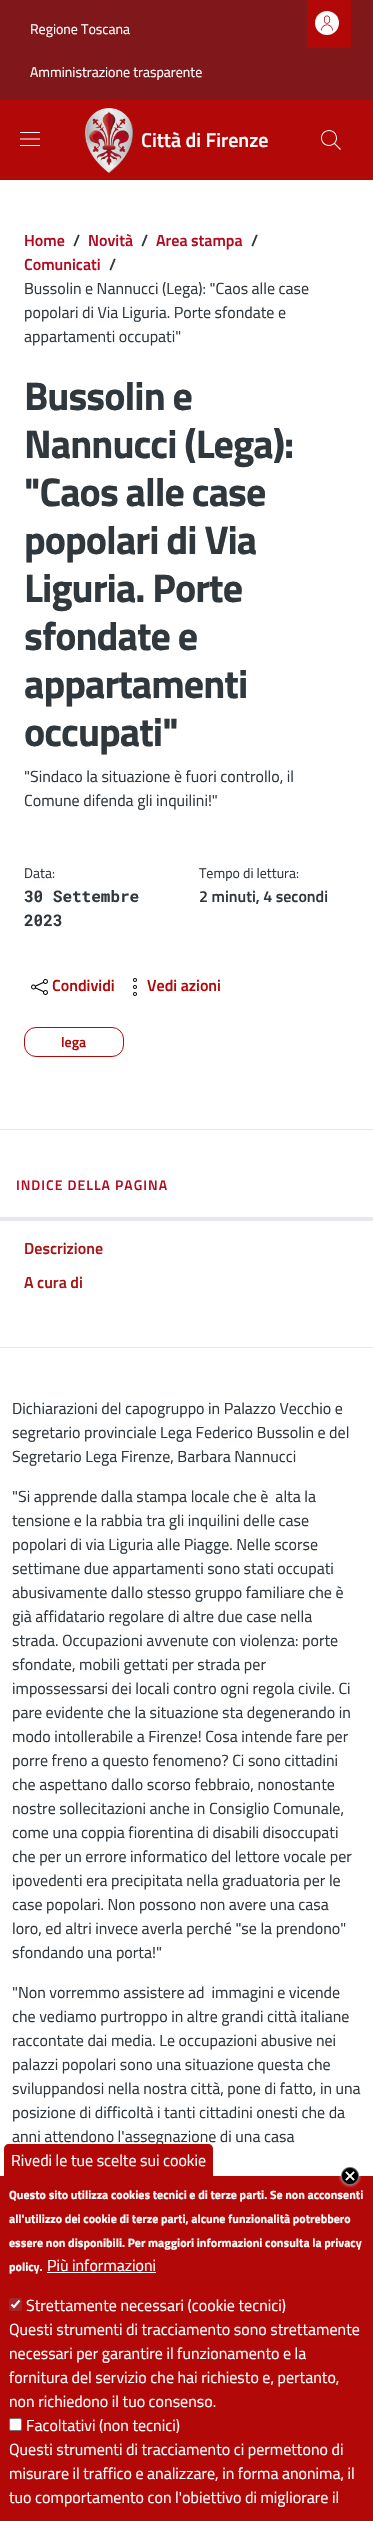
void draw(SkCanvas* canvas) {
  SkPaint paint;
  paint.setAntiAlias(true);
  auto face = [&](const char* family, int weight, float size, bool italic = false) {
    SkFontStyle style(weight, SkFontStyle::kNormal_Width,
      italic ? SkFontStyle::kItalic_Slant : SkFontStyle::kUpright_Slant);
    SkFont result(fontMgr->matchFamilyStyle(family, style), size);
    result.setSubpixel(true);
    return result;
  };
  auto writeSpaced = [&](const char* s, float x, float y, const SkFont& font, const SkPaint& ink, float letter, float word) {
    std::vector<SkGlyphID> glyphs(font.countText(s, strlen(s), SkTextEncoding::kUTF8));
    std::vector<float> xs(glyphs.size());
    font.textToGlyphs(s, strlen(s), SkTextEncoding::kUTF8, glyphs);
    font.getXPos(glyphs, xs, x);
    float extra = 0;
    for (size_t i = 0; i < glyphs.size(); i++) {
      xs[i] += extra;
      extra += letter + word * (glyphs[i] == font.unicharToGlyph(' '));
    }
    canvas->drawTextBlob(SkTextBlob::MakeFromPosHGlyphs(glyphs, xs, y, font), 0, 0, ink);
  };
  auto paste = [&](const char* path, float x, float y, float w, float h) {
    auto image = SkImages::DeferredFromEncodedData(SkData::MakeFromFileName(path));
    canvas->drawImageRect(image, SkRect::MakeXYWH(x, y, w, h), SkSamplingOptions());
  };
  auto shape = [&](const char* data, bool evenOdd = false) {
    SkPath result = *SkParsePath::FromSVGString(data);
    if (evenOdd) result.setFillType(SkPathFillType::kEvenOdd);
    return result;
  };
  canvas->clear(0xffffffff);
  paint.setColor(0xff80171b);
  canvas->drawRect(SkRect::MakeXYWH(0, 0, 373, 100), paint);
  paint.setColor(0xffb30808);
  canvas->drawRect(SkRect::MakeXYWH(307, 0, 44, 48), paint);
  paint.setColor(0xffffffff);
  canvas->drawCircle(327, 23, 12, paint);
  paste("img/1.png", 321, 15, 12, 16);
  paint.setColor(0xffb30808);
  canvas->drawRect(SkRect::MakeXYWH(0, 100, 373, 80), paint);
  paste("img/2.png", 20, 132, 20, 14);
  paste("img/3.png", 85, 108, 48, 65);
  paste("img/4.png", 321, 130, 20, 20);
  paste("img/5.png", 31, 979, 17, 16);
  paste("img/6.png", 133, 978, 4, 18);
  paint.setStroke(true);
  paint.setStrokeWidth(1);
  canvas->drawRoundRect(SkRect::MakeXYWH(24.5f, 1027.5f, 99, 29), 11.5f, 11.5f, paint);
  paint.setStroke(false);
  {
    const struct { float x, y, w, h; SkColor color; } items[] = {
      {0, 1129, 373, 1, 0xffe9e6f2},
      {0, 1347, 373, 1, 0xffe9e6f2},
      {0, 1217, 373, 4, 0xffe9e6f2},
      {0, 2176, 373, 345, 0xffb30808},
    };
    for (auto [x, y, w, h, color] : items) {
      paint.setColor(color);
      canvas->drawRect(SkRect::MakeXYWH(x, y, w, h), paint);
    }
  }
  paste("img/7.png", 338, 2167, 24, 21);
  paint.setColor(0xffffffff);
  canvas->drawRect(SkRect::MakeXYWH(47, 2272, 109, 1), paint);
  paint.setColor(0xffa12929);
  canvas->drawRoundRect(SkRect::MakeXYWH(9, 2298, 13, 13), 2, 2, paint);
  paint.setStroke(true);
  paint.setStrokeWidth(2.1f);
  paint.setColor(0xffffffff);
  canvas->drawPath(shape("M11.5 2304.5L14 2307L19.5 2300.5"), paint);
  paint.setStroke(false);
  canvas->drawRoundRect(SkRect::MakeXYWH(9.5f, 2418.5f, 12, 12), 1.5f, 1.5f, paint);
  paint.setStroke(true);
  paint.setStrokeWidth(1);
  paint.setColor(0xff767676);
  canvas->drawRoundRect(SkRect::MakeXYWH(9.5f, 2418.5f, 12, 12), 1.5f, 1.5f, paint);
  auto f0 = face("Titillium Web", 400, 14);
  paint.setStroke(false);
  paint.setColor(0xffffffff);
  canvas->drawString("Regione Toscana", 30, 34, f0, paint);
  canvas->drawString("Amministrazione trasparente", 30, 77, f0, paint);
  auto f1 = face("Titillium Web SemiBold", 600, 20);
  canvas->drawString("Città di Firenze", 141, 147, f1, paint);
  auto f2 = face("Titillium Web SemiBold", 600, 16);
  paint.setColor(0xffb30921);
  canvas->drawString("Home", 24, 246, f2, paint);
  paint.setColor(0xff30373d);
  canvas->drawString("/", 73, 246, f2, paint);
  paint.setColor(0xffb30921);
  canvas->drawString("Novità", 88, 246, f2, paint);
  paint.setColor(0xff30373d);
  canvas->drawString("/", 141, 246, f2, paint);
  paint.setColor(0xffb30921);
  canvas->drawString("Area stampa", 156, 246, f2, paint);
  paint.setColor(0xff30373d);
  canvas->drawString("/", 251, 246, f2, paint);
  paint.setColor(0xffb30921);
  canvas->drawString("Comunicati", 24, 270, f2, paint);
  paint.setColor(0xff30373d);
  canvas->drawString("/", 109, 270, f2, paint);
  auto f3 = face("Titillium Web", 400, 16);
  {
    const struct { const char* s; float x, y; } items[] = {
      {"Bussolin e Nannucci (Lega): \"Caos alle case", 24, 294},
      {"popolari di Via Liguria. Porte sfondate e", 24, 318},
      {"appartamenti occupati\"", 24, 342},
    };
    for (auto [s, x, y] : items) {
      canvas->drawString(s, x, y, f3, paint);
    }
  }
  auto f4 = face("Titillium Web", 700, 40);
  {
    const struct { const char* s; float x, y; } items[] = {
      {"Bussolin e", 24, 410},
      {"Nannucci (Lega):", 24, 458},
      {"\"Caos alle case", 24, 506},
      {"popolari di Via", 24, 554},
      {"Liguria. Porte", 24, 602},
      {"sfondate e", 24, 650},
      {"appartamenti", 24, 698},
      {"occupati\"", 24, 746},
    };
    for (auto [s, x, y] : items) {
      writeSpaced(s, x, y, f4, paint, -1, 0);
    }
  }
  canvas->drawString("\"Sindaco la situazione è fuori controllo, il", 24, 782, f3, paint);
  canvas->drawString("Comune difenda gli inquilini!\"", 24, 806, f3, paint);
  canvas->drawString("Data:", 24, 878, f0, paint);
  auto f5 = face("Roboto Mono", 700, 16);
  canvas->drawString("30 Settembre", 24, 902, f5, paint);
  canvas->drawString("2023", 24, 926, f5, paint);
  canvas->drawString("Tempo di lettura:", 199, 878, f0, paint);
  canvas->drawString("2 minuti, 4 secondi", 199, 902, f2, paint);
  paint.setColor(0xffb30808);
  canvas->drawString("Condividi", 52, 991, f2, paint);
  canvas->drawString("Vedi azioni", 147, 991, f2, paint);
  auto f6 = face("Titillium Web SemiBold", 600, 14);
  canvas->drawString("lega", 61, 1047, f6, paint);
  paint.setColor(0xffb30921);
  writeSpaced("INDICE DELLA PAGINA", 16, 1190, f6, paint, 1, 0);
  paint.setColor(0xffa41515);
  canvas->drawString("Descrizione", 24, 1254, f2, paint);
  canvas->drawString("A cura di", 24, 1288, f2, paint);
  paint.setColor(0xff30373d);
  {
    const struct { const char* s; float x, y; } items[] = {
      {"Dichiarazioni del capogruppo in Palazzo Vecchio e", 12, 1414},
      {"segretario provinciale Lega Federico Bussolin e del", 12, 1438},
      {"Segretario Lega Firenze, Barbara Nannucci", 12, 1462},
      {"\"Si apprende dalla stampa locale che è  alta la", 12, 1502},
      {"tensione e la rabbia tra gli inquilini delle case", 12, 1526},
      {"popolari di via Liguria alle Piagge. Nelle scorse", 12, 1550},
      {"settimane due appartamenti sono stati occupati", 12, 1574},
      {"abusivamente dallo stesso gruppo familiare che è", 12, 1598},
      {"già affidatario regolare di altre due case nella", 12, 1622},
      {"strada. Occupazioni avvenute con violenza: porte", 12, 1646},
      {"sfondate, mobili gettati per strada per", 12, 1670},
      {"impossessarsi dei locali contro ogni regola civile. Ci", 12, 1694},
      {"pare evidente che la situazione sta degenerando in", 12, 1718},
      {"modo intollerabile a Firenze! Cosa intende fare per", 12, 1742},
      {"porre freno a questo fenomeno? Ci sono cittadini", 12, 1766},
      {"che aspettano dallo scorso febbraio, nonostante", 12, 1790},
      {"nostre sollecitazioni anche in Consiglio Comunale,", 12, 1814},
      {"come una coppia fiorentina di disabili disoccupati", 12, 1838},
      {"che per un errore informatico del lettore vocale per", 12, 1862},
      {"ipovedenti era precipitata nella graduatoria per le", 12, 1886},
      {"case popolari. Non possono non avere una casa", 12, 1910},
      {"loro, ed altri invece averla perché \"se la prendono\"", 12, 1934},
      {"sfondando una porta!\"", 12, 1958},
      {"\"Non vorremmo assistere ad  immagini e vicende", 12, 1998},
      {"che vediamo purtroppo in altre grandi città italiane", 12, 2022},
      {"raccontate dai media. Le occupazioni abusive nei", 12, 2046},
      {"palazzi popolari sono una situazione questa che", 12, 2070},
      {"sviluppandosi nella nostra città, pone di fatto, in una", 12, 2094},
      {"posizione di difficoltà i tanti cittadini onesti che da", 12, 2118},
      {"anni attendono l'assegnazione di una casa", 12, 2142},
    };
    for (auto [s, x, y] : items) {
      canvas->drawString(s, x, y, f3, paint);
    }
  }
  paint.setColor(0xffb30808);
  canvas->drawPath(shape("M9 2144H208C211 2144 213 2146 213 2149V2176H4V2149C4 2146 6 2144 9 2144Z"), paint);
  paint.setColor(0xffffffff);
  canvas->drawString("Rivedi le tue scelte sui cookie", 11, 2166, f3, paint);
  auto f7 = face("Titillium Web", 700, 12);
  {
    const struct { const char* s; float x, y; } items[] = {
      {"Questo sito utilizza cookies tecnici e di terze parti. Se non acconsenti", 9, 2199},
      {"all'utilizzo dei cookie di terze parti, alcune funzionalità potrebbero", 9, 2223},
      {"essere non disponibili. Per maggiori informazioni consulta la privacy", 9, 2247},
      {"policy.", 9, 2271},
    };
    for (auto [s, x, y] : items) {
      canvas->drawString(s, x, y, f7, paint);
    }
  }
  {
    const struct { const char* s; float x, y; } items[] = {
      {"Più informazioni", 47, 2271},
      {"Strettamente necessari (cookie tecnici)", 26, 2311},
      {"Questi strumenti di tracciamento sono strettamente", 9, 2335},
      {"necessari per garantire il funzionamento e la", 9, 2359},
      {"fornitura del servizio che hai richiesto e, pertanto,", 9, 2383},
      {"non richiedono il tuo consenso.", 9, 2407},
      {"Facoltativi (non tecnici)", 26, 2431},
      {"Questi strumenti di tracciamento ci permettono di", 9, 2455},
      {"misurare il traffico e analizzare, in forma anonima, il", 9, 2479},
      {"tuo comportamento con l'obiettivo di migliorare il", 9, 2503},
    };
    for (auto [s, x, y] : items) {
      canvas->drawString(s, x, y, f3, paint);
    }
  }
}
